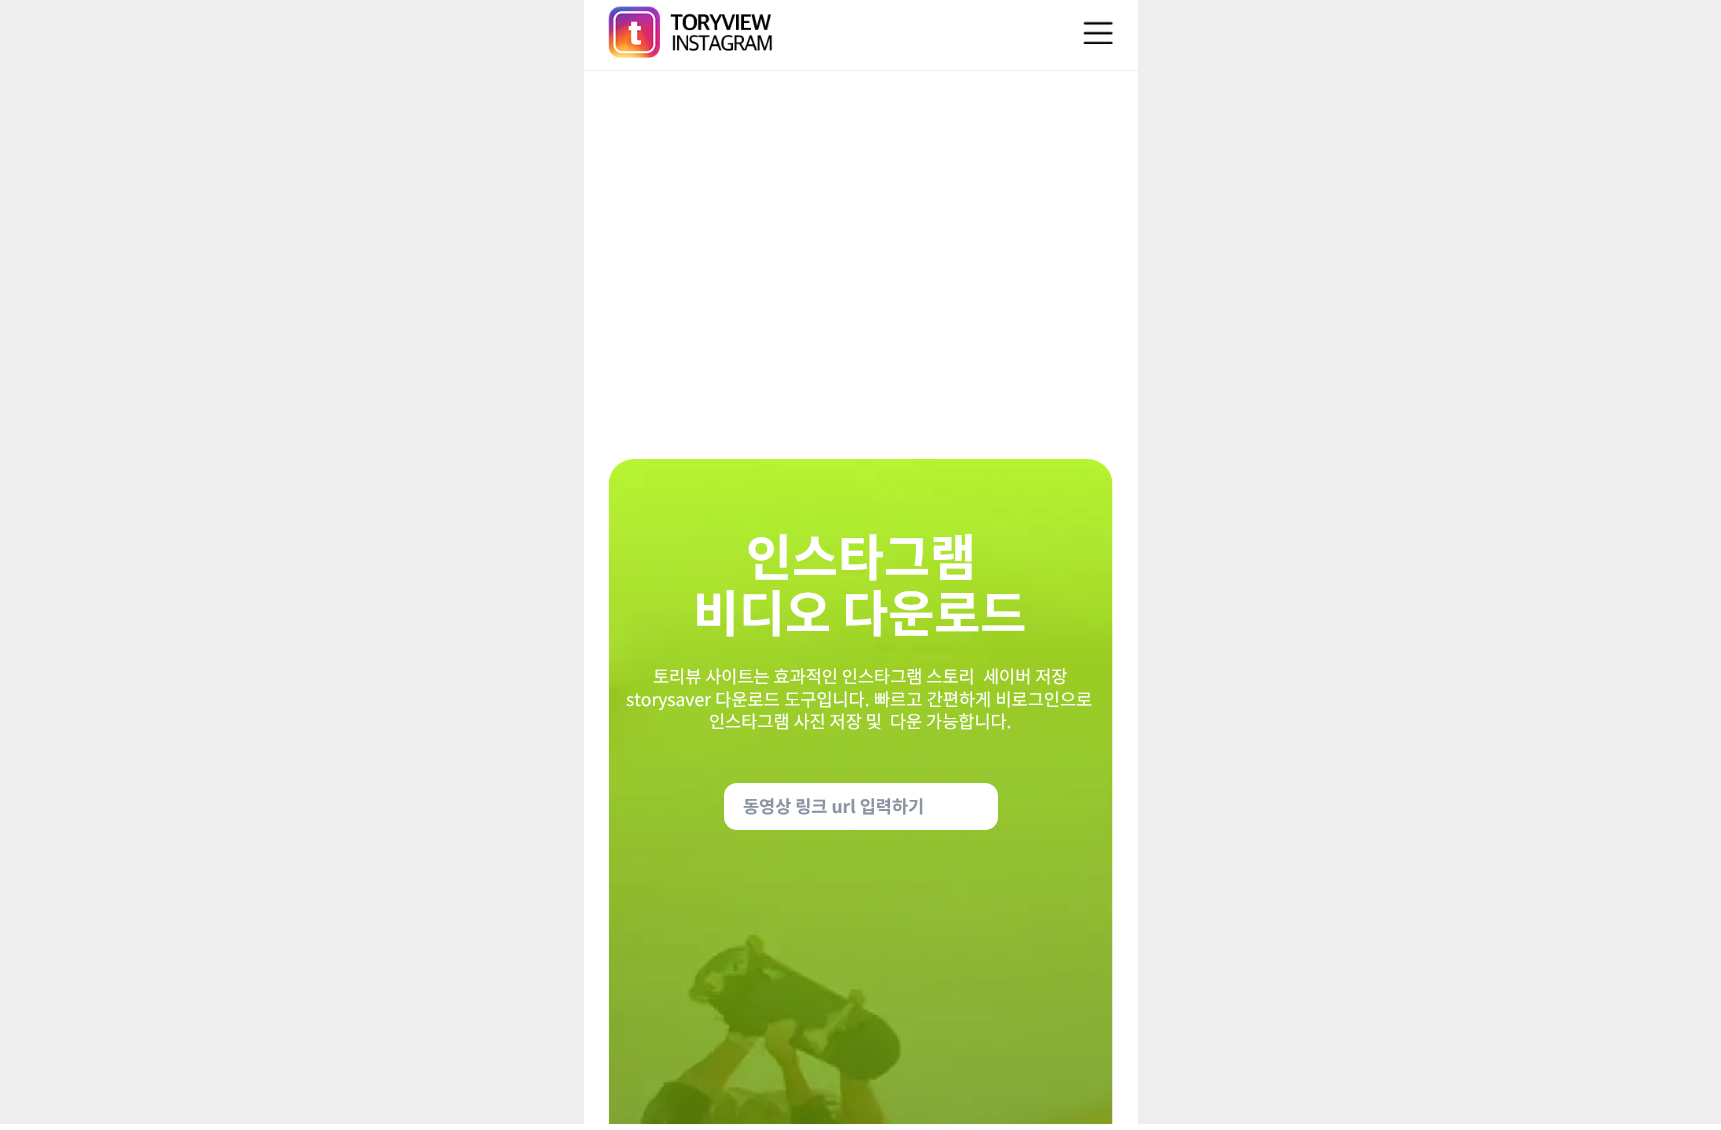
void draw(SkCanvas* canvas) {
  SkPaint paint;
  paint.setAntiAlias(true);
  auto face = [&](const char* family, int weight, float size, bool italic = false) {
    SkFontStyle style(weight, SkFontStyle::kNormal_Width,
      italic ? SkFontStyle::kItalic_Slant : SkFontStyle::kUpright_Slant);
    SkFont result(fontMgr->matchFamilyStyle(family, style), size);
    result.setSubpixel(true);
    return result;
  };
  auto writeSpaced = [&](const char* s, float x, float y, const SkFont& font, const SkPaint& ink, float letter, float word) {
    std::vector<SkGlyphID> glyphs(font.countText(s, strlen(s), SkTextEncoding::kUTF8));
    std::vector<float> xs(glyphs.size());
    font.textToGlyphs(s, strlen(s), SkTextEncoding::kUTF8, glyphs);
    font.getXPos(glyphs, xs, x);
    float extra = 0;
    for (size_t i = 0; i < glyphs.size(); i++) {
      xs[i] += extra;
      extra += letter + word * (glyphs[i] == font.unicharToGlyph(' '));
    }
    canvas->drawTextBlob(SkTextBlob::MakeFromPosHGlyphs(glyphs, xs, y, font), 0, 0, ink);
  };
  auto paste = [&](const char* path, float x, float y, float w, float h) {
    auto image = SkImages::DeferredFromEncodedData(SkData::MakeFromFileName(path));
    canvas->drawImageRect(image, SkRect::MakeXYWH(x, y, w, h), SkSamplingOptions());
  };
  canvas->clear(0xffffffff);
  {
    const struct { float x, y, w, h; SkColor color; } items[] = {
      {0, 0, 1721, 1124, 0xffeeeeee},
      {584, 0, 554, 1124, 0xffffffff},
      {584, 70, 554, 1, 0xffeeeeee},
    };
    for (auto [x, y, w, h, color] : items) {
      paint.setColor(color);
      canvas->drawRect(SkRect::MakeXYWH(x, y, w, h), paint);
    }
  }
  paste("img/1.png", 608, 6, 165, 52);
  paste("img/2.png", 1083, 21, 30, 23);
  paste("img/3.png", 608, 459, 505, 665);
  paint.setColor(0xffffffff);
  canvas->drawRoundRect(SkRect::MakeXYWH(724, 783, 274, 47), 13, 13, paint);
  auto f0 = face("Noto Sans KR", 700, 50);
  canvas->drawString("인스타그램", 746, 576, f0, paint);
  canvas->drawString("비디오 다운로드", 693, 632, f0, paint);
  auto f1 = face("Noto Sans KR", 400, 17.5f);
  canvas->drawString("토리뷰 사이트는 효과적인 인스타그램 스토리", 653, 683, f1, paint);
  canvas->drawString("세이버 저장", 983, 683, f1, paint);
  writeSpaced("storysaver 다운로드 도구입니다. 빠르고 간편하게 비로그인으로", 626, 706, f1, paint, 0, 0.5f);
  canvas->drawString("인스타그램 사진 저장 및", 709, 728, f1, paint);
  canvas->drawString("다운 가능합니다.", 890, 728, f1, paint);
  auto f2 = face("Noto Sans KR", 700, 17.5f);
  paint.setColor(0xff8b95a1);
  canvas->drawString("동영상 링크 url 입력하기", 743, 813, f2, paint);
}
